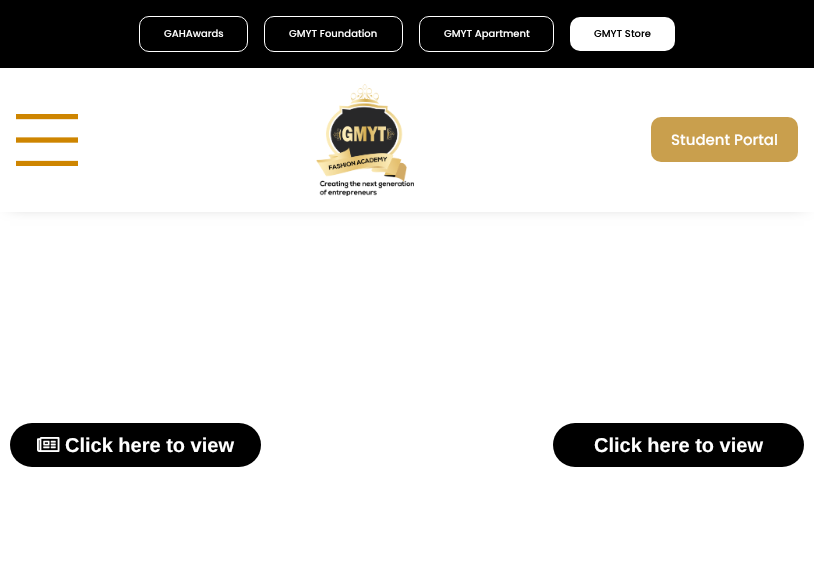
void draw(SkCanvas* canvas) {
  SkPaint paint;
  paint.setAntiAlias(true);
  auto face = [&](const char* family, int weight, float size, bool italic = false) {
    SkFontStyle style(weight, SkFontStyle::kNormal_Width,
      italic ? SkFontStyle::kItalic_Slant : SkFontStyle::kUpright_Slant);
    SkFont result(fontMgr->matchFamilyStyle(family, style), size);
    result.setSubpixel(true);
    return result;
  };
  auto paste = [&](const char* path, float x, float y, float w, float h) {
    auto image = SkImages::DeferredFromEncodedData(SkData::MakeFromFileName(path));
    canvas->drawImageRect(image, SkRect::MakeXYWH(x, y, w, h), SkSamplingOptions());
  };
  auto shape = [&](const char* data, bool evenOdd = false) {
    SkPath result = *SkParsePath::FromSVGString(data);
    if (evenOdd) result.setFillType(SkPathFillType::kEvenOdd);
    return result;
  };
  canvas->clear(0xffffffff);
  paint.setColor(0xff000000);
  canvas->drawRect(SkRect::MakeXYWH(0, 0, 814, 68), paint);
  paint.setStroke(true);
  paint.setStrokeWidth(1);
  paint.setColor(0xffffffff);
  canvas->drawRoundRect(SkRect::MakeXYWH(139.5f, 16.5f, 108, 35), 9.5f, 9.5f, paint);
  canvas->drawRoundRect(SkRect::MakeXYWH(264.5f, 16.5f, 138, 35), 9.5f, 9.5f, paint);
  canvas->drawRoundRect(SkRect::MakeXYWH(419.5f, 16.5f, 134, 35), 9.5f, 9.5f, paint);
  paint.setStroke(false);
  canvas->drawRoundRect(SkRect::MakeXYWH(570, 17, 105, 34), 10, 10, paint);
  canvas->save();
  canvas->clipPath(shape("M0 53H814V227H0ZM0 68H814V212H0Z", true), true);
  paint.setColor(0x80000000);
  paint.setMaskFilter(SkMaskFilter::MakeBlur(kNormal_SkBlurStyle, 8));
  canvas->drawRect(SkRect::MakeXYWH(10, 78, 794, 124), paint);
  paint.setMaskFilter(nullptr);
  canvas->restore();
  paste("img/1.png", 16, 114, 62, 52);
  paste("img/2.png", 316, 84, 98, 112);
  paint.setColor(0xffc99f4d);
  canvas->drawRoundRect(SkRect::MakeXYWH(651, 117, 147, 45), 10, 10, paint);
  paint.setColor(0xff000000);
  canvas->drawRoundRect(SkRect::MakeXYWH(10, 423, 251, 44), 22, 22, paint);
  paste("img/3.png", 37, 437, 23, 15);
  canvas->drawRoundRect(SkRect::MakeXYWH(553, 423, 251, 44), 22, 22, paint);
  auto f0 = face("Poppins", 500, 10);
  paint.setColor(0xffffffff);
  {
    const struct { const char* s; float x, y; } items[] = {
      {"GAHAwards", 164, 37},
      {"GMYT Foundation", 289, 37},
      {"GMYT Apartment", 444, 37},
    };
    for (auto [s, x, y] : items) {
      canvas->drawString(s, x, y, f0, paint);
    }
  }
  paint.setColor(0xff000000);
  canvas->drawString("GMYT Store", 594, 37, f0, paint);
  auto f1 = face("Poppins", 500, 15);
  paint.setColor(0xffffffff);
  canvas->drawString("Student Portal", 671, 145, f1, paint);
  auto f2 = face("Liberation Sans", 700, 20);
  canvas->drawString("Click here to view", 65, 452, f2, paint);
  canvas->drawString("Click here to view", 594, 452, f2, paint);
}
